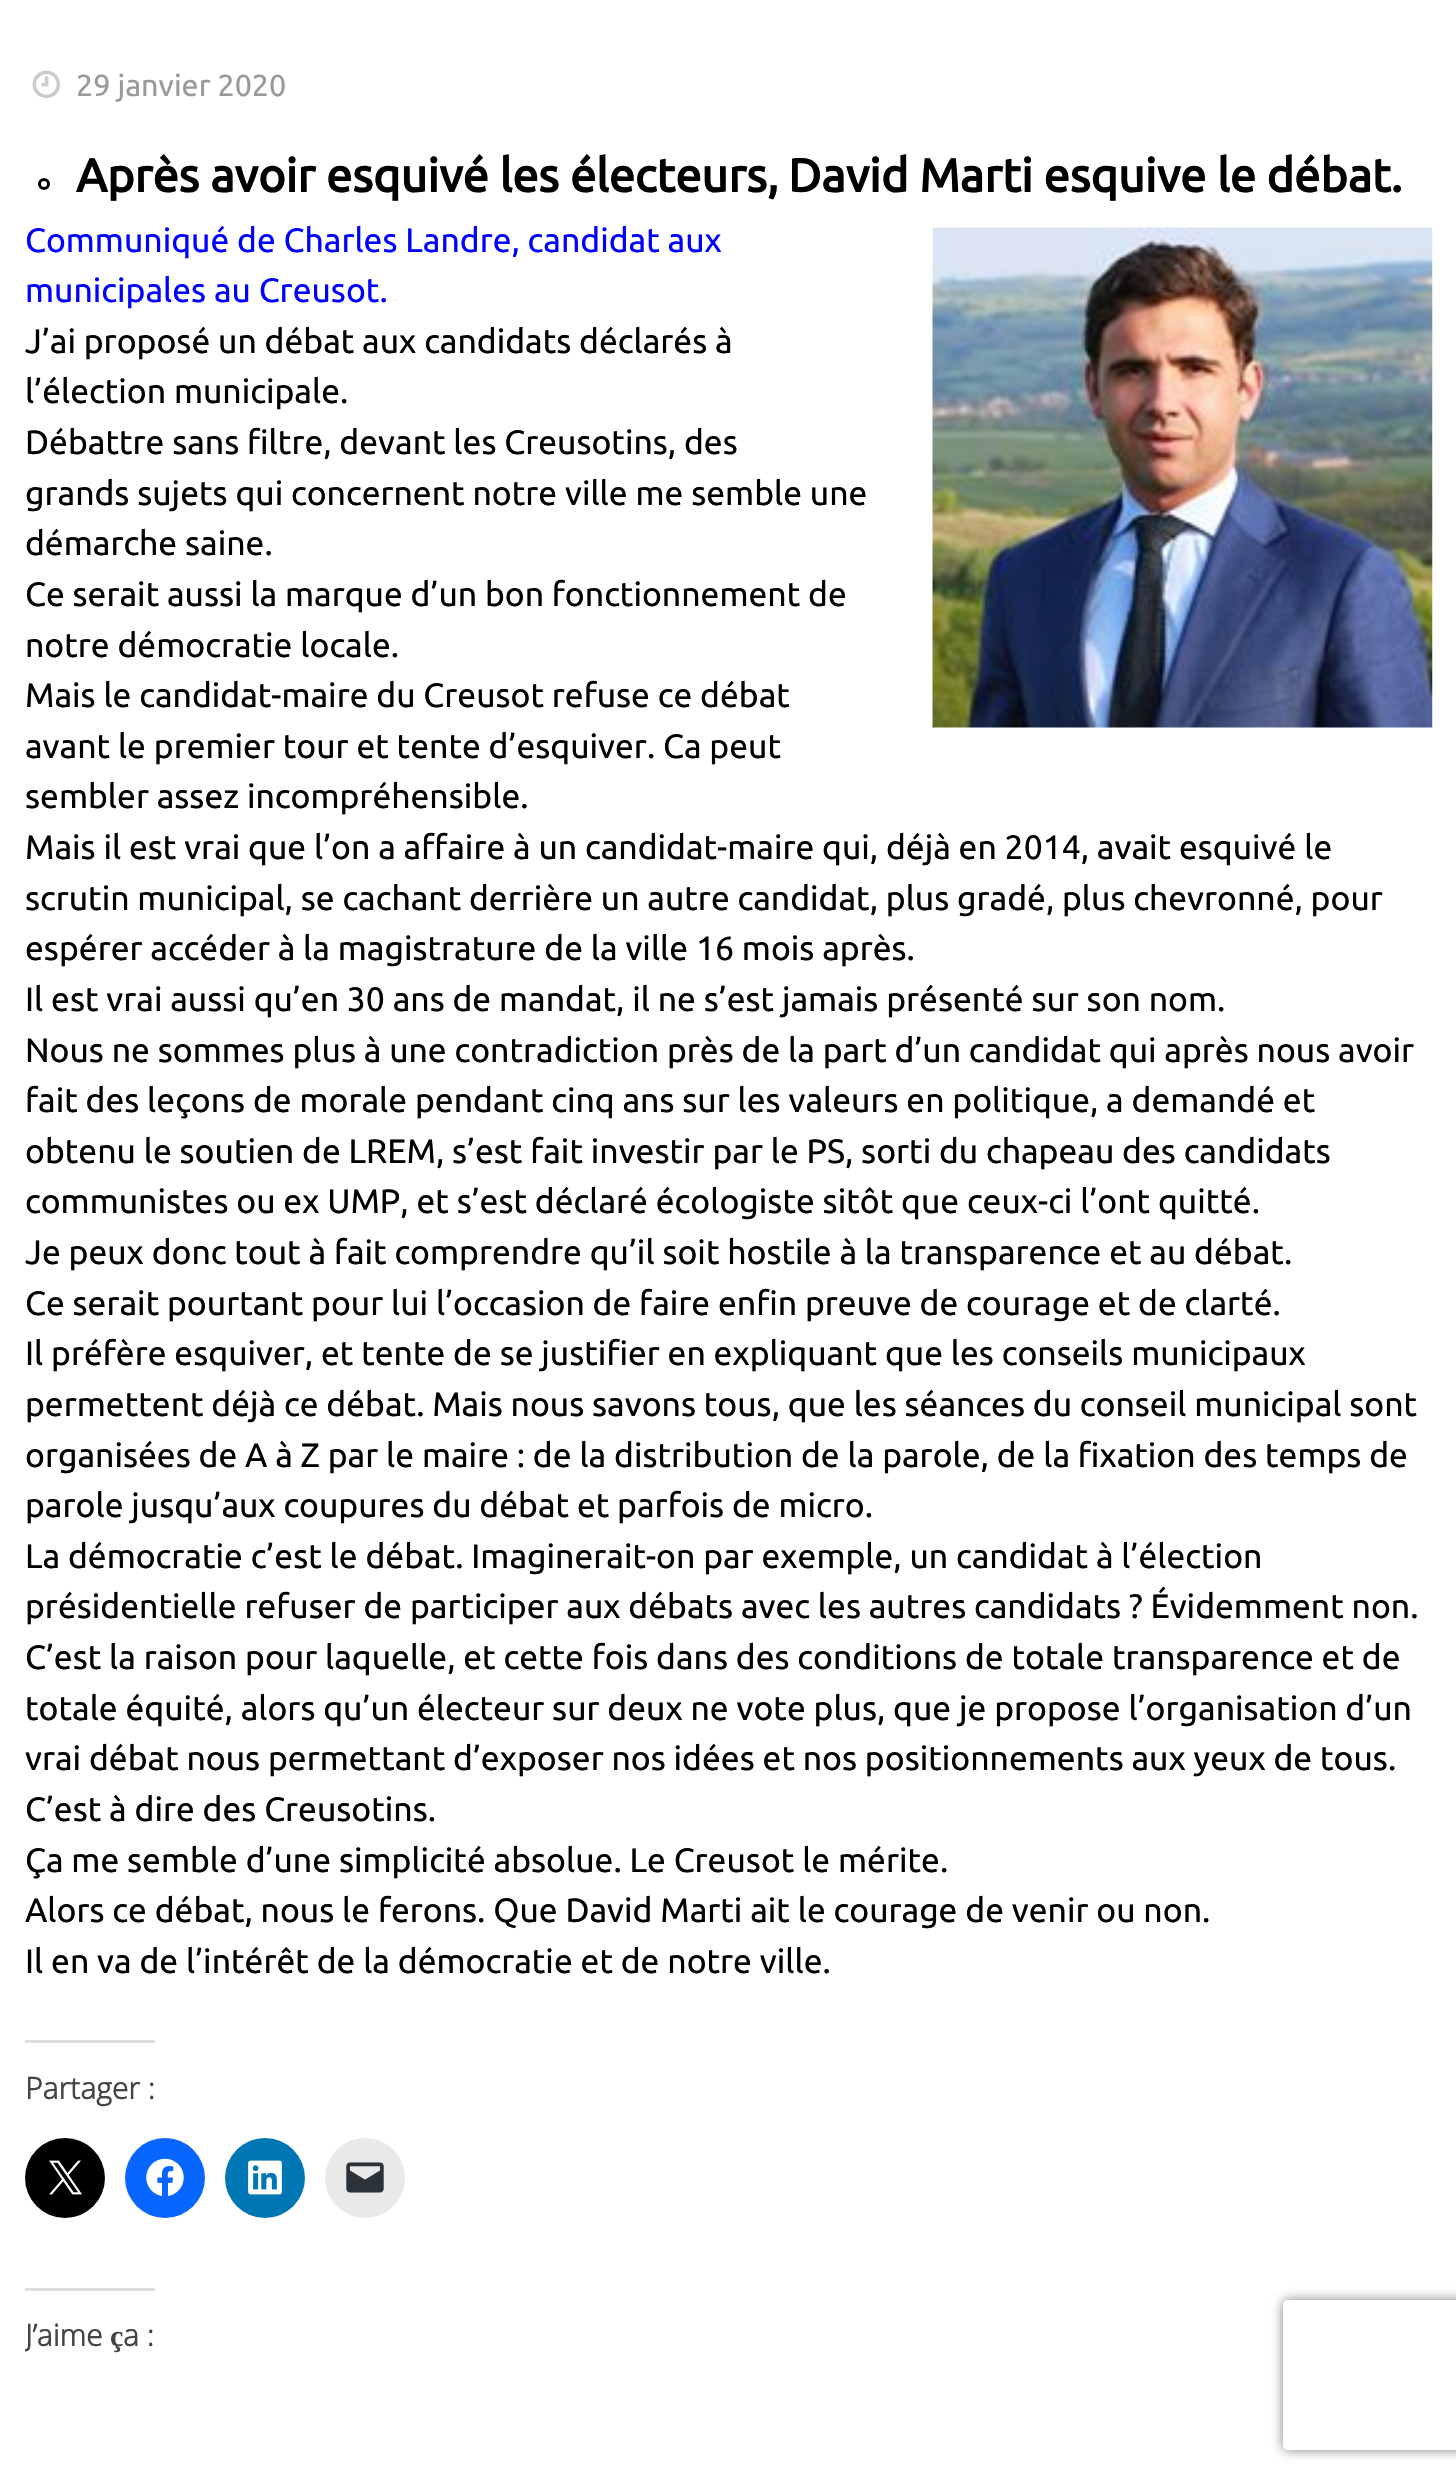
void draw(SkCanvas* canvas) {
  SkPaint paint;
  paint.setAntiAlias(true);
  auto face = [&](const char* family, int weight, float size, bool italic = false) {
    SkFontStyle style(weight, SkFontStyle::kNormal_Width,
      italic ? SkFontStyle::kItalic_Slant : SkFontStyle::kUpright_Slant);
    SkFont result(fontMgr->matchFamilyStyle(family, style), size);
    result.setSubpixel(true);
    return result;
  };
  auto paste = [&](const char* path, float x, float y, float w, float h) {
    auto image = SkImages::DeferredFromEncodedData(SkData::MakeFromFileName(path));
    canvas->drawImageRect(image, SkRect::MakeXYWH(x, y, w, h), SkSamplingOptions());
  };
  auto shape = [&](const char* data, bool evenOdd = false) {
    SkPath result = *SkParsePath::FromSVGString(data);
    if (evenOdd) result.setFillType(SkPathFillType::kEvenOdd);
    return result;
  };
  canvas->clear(0xffffffff);
  paste("img/1.png", 32, 70, 29, 29);
  paint.setStroke(true);
  paint.setStrokeWidth(3);
  paint.setColor(0xff000000);
  canvas->drawCircle(44, 184, 4.5f, paint);
  paste("img/2.png", 932, 227, 501, 501);
  paint.setStroke(false);
  paint.setColor(0xffdcdcde);
  canvas->drawRect(SkRect::MakeXYWH(25, 2040, 130, 3), paint);
  paint.setColor(0xff000000);
  canvas->drawCircle(65, 2178, 40, paint);
  paste("img/3.png", 49, 2160, 33, 35);
  paint.setColor(0xff0866ff);
  canvas->drawCircle(165, 2178, 40, paint);
  paste("img/4.png", 146, 2158, 38, 38);
  paint.setColor(0xff0077b5);
  canvas->drawCircle(265, 2178, 40, paint);
  paste("img/5.png", 248, 2160, 34, 35);
  paint.setColor(0xffe9e9e9);
  canvas->drawCircle(365, 2178, 40, paint);
  paste("img/6.png", 346, 2162, 38, 31);
  paint.setColor(0xffdcdcde);
  canvas->drawRect(SkRect::MakeXYWH(25, 2288, 130, 3), paint);
  canvas->save();
  canvas->clipPath(shape("M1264 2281H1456V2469H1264ZM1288 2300H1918C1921 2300 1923 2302 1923 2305V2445C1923 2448 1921 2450 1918 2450H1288C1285 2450 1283 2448 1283 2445V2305C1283 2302 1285 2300 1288 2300Z", true), true);
  paint.setColor(0xff808080);
  paint.setMaskFilter(SkMaskFilter::MakeBlur(kNormal_SkBlurStyle, 6));
  canvas->drawRoundRect(SkRect::MakeXYWH(1283, 2300, 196, 150), 5, 5, paint);
  paint.setMaskFilter(nullptr);
  canvas->restore();
  auto f0 = face("Ubuntu", 400, 30.5f);
  paint.setColor(0xff999999);
  canvas->drawString("29 janvier 2020", 76, 96, f0, paint);
  auto f1 = face("Ubuntu", 700, 46.7f);
  paint.setColor(0xff000000);
  canvas->drawString("Après avoir esquivé les électeurs,", 76, 192, f1, paint);
  canvas->drawString("David Marti esquive le débat.", 788, 192, f1, paint);
  auto f2 = face("Ubuntu", 400, 33.75f);
  paint.setColor(0xff0000ff);
  canvas->drawString("Communiqué de Charles Landre, candidat aux", 25, 252, f2, paint);
  canvas->drawString("municipales au Creusot.", 25, 302, f2, paint);
  paint.setColor(0xff000000);
  {
    const struct { const char* s; float x, y; } items[] = {
      {"J’ai proposé un débat aux candidats déclarés à", 25, 353},
      {"l’élection municipale.", 25, 403},
      {"Débattre sans filtre, devant les Creusotins, des", 25, 454},
      {"grands sujets qui concernent notre ville me semble une", 25, 505},
      {"démarche saine.", 25, 555},
      {"Ce serait aussi la marque d’un bon fonctionnement de", 25, 606},
      {"notre démocratie locale.", 25, 657},
      {"Mais le candidat-maire du Creusot refuse ce débat", 25, 707},
      {"avant le premier tour et tente d’esquiver. Ca peut", 25, 758},
      {"sembler assez incompréhensible.", 25, 808},
      {"Mais il est vrai que l’on a affaire à un candidat-maire qui, déjà en 2014, avait esquivé le", 25, 859},
      {"scrutin municipal, se cachant derrière un autre candidat, plus gradé, plus chevronné, pour", 25, 910},
      {"espérer accéder à la magistrature de la ville 16 mois après.", 25, 960},
      {"Il est vrai aussi qu’en 30 ans de mandat, il ne s’est jamais présenté sur son nom.", 25, 1011},
      {"Nous ne sommes plus à une contradiction près de la part d’un candidat qui après nous avoir", 25, 1062},
      {"fait des leçons de morale pendant cinq ans sur les valeurs en politique, a demandé et", 25, 1112},
      {"obtenu le soutien de LREM, s’est fait investir par le PS, sorti du chapeau des candidats", 25, 1163},
      {"communistes ou ex UMP, et s’est déclaré écologiste sitôt que ceux-ci l’ont quitté.", 25, 1213},
      {"Je peux donc tout à fait comprendre qu’il soit hostile à la transparence et au débat.", 25, 1264},
      {"Ce serait pourtant pour lui l’occasion de faire enfin preuve de courage et de clarté.", 25, 1315},
      {"Il préfère esquiver, et tente de se justifier en expliquant que les conseils municipaux", 25, 1365},
      {"permettent déjà ce débat. Mais nous savons tous, que les séances du conseil municipal sont", 25, 1416},
      {"organisées de A à Z par le maire : de la distribution de la parole, de la fixation des temps de", 25, 1467},
      {"parole jusqu’aux coupures du débat et parfois de micro.", 25, 1517},
      {"La démocratie c’est le débat. Imaginerait-on par exemple, un candidat à l’élection", 25, 1568},
      {"présidentielle refuser de participer aux débats avec les autres candidats ? Évidemment non.", 25, 1618},
      {"C’est la raison pour laquelle, et cette fois dans des conditions de totale transparence et de", 25, 1669},
      {"totale équité, alors qu’un électeur sur deux ne vote plus, que je propose l’organisation d’un", 25, 1720},
      {"vrai débat nous permettant d’exposer nos idées et nos positionnements aux yeux de tous.", 25, 1770},
      {"C’est à dire des Creusotins.", 25, 1821},
      {"Ça me semble d’une simplicité absolue. Le Creusot le mérite.", 25, 1872},
      {"Alors ce débat, nous le ferons. Que David Marti ait le courage de venir ou non.", 25, 1922},
      {"Il en va de l’intérêt de la démocratie et de notre ville.", 25, 1973},
    };
    for (auto [s, x, y] : items) {
      canvas->drawString(s, x, y, f2, paint);
    }
  }
  auto f3 = face("Open Sans", 700, 30);
  paint.setColor(0xff444444);
  canvas->drawString("Partager :", 25, 2099, f3, paint);
  canvas->save();
  canvas->clipRect(SkRect::MakeXYWH(25, 0, 1408, 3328));
  canvas->drawString("J’aime", 25, 2346, f3, paint);
  canvas->restore();
  auto f4 = face("Liberation Serif", 700, 30);
  canvas->drawString("ç", 110, 2346, f4, paint);
  canvas->drawString("a :", 123, 2346, f3, paint);
}
